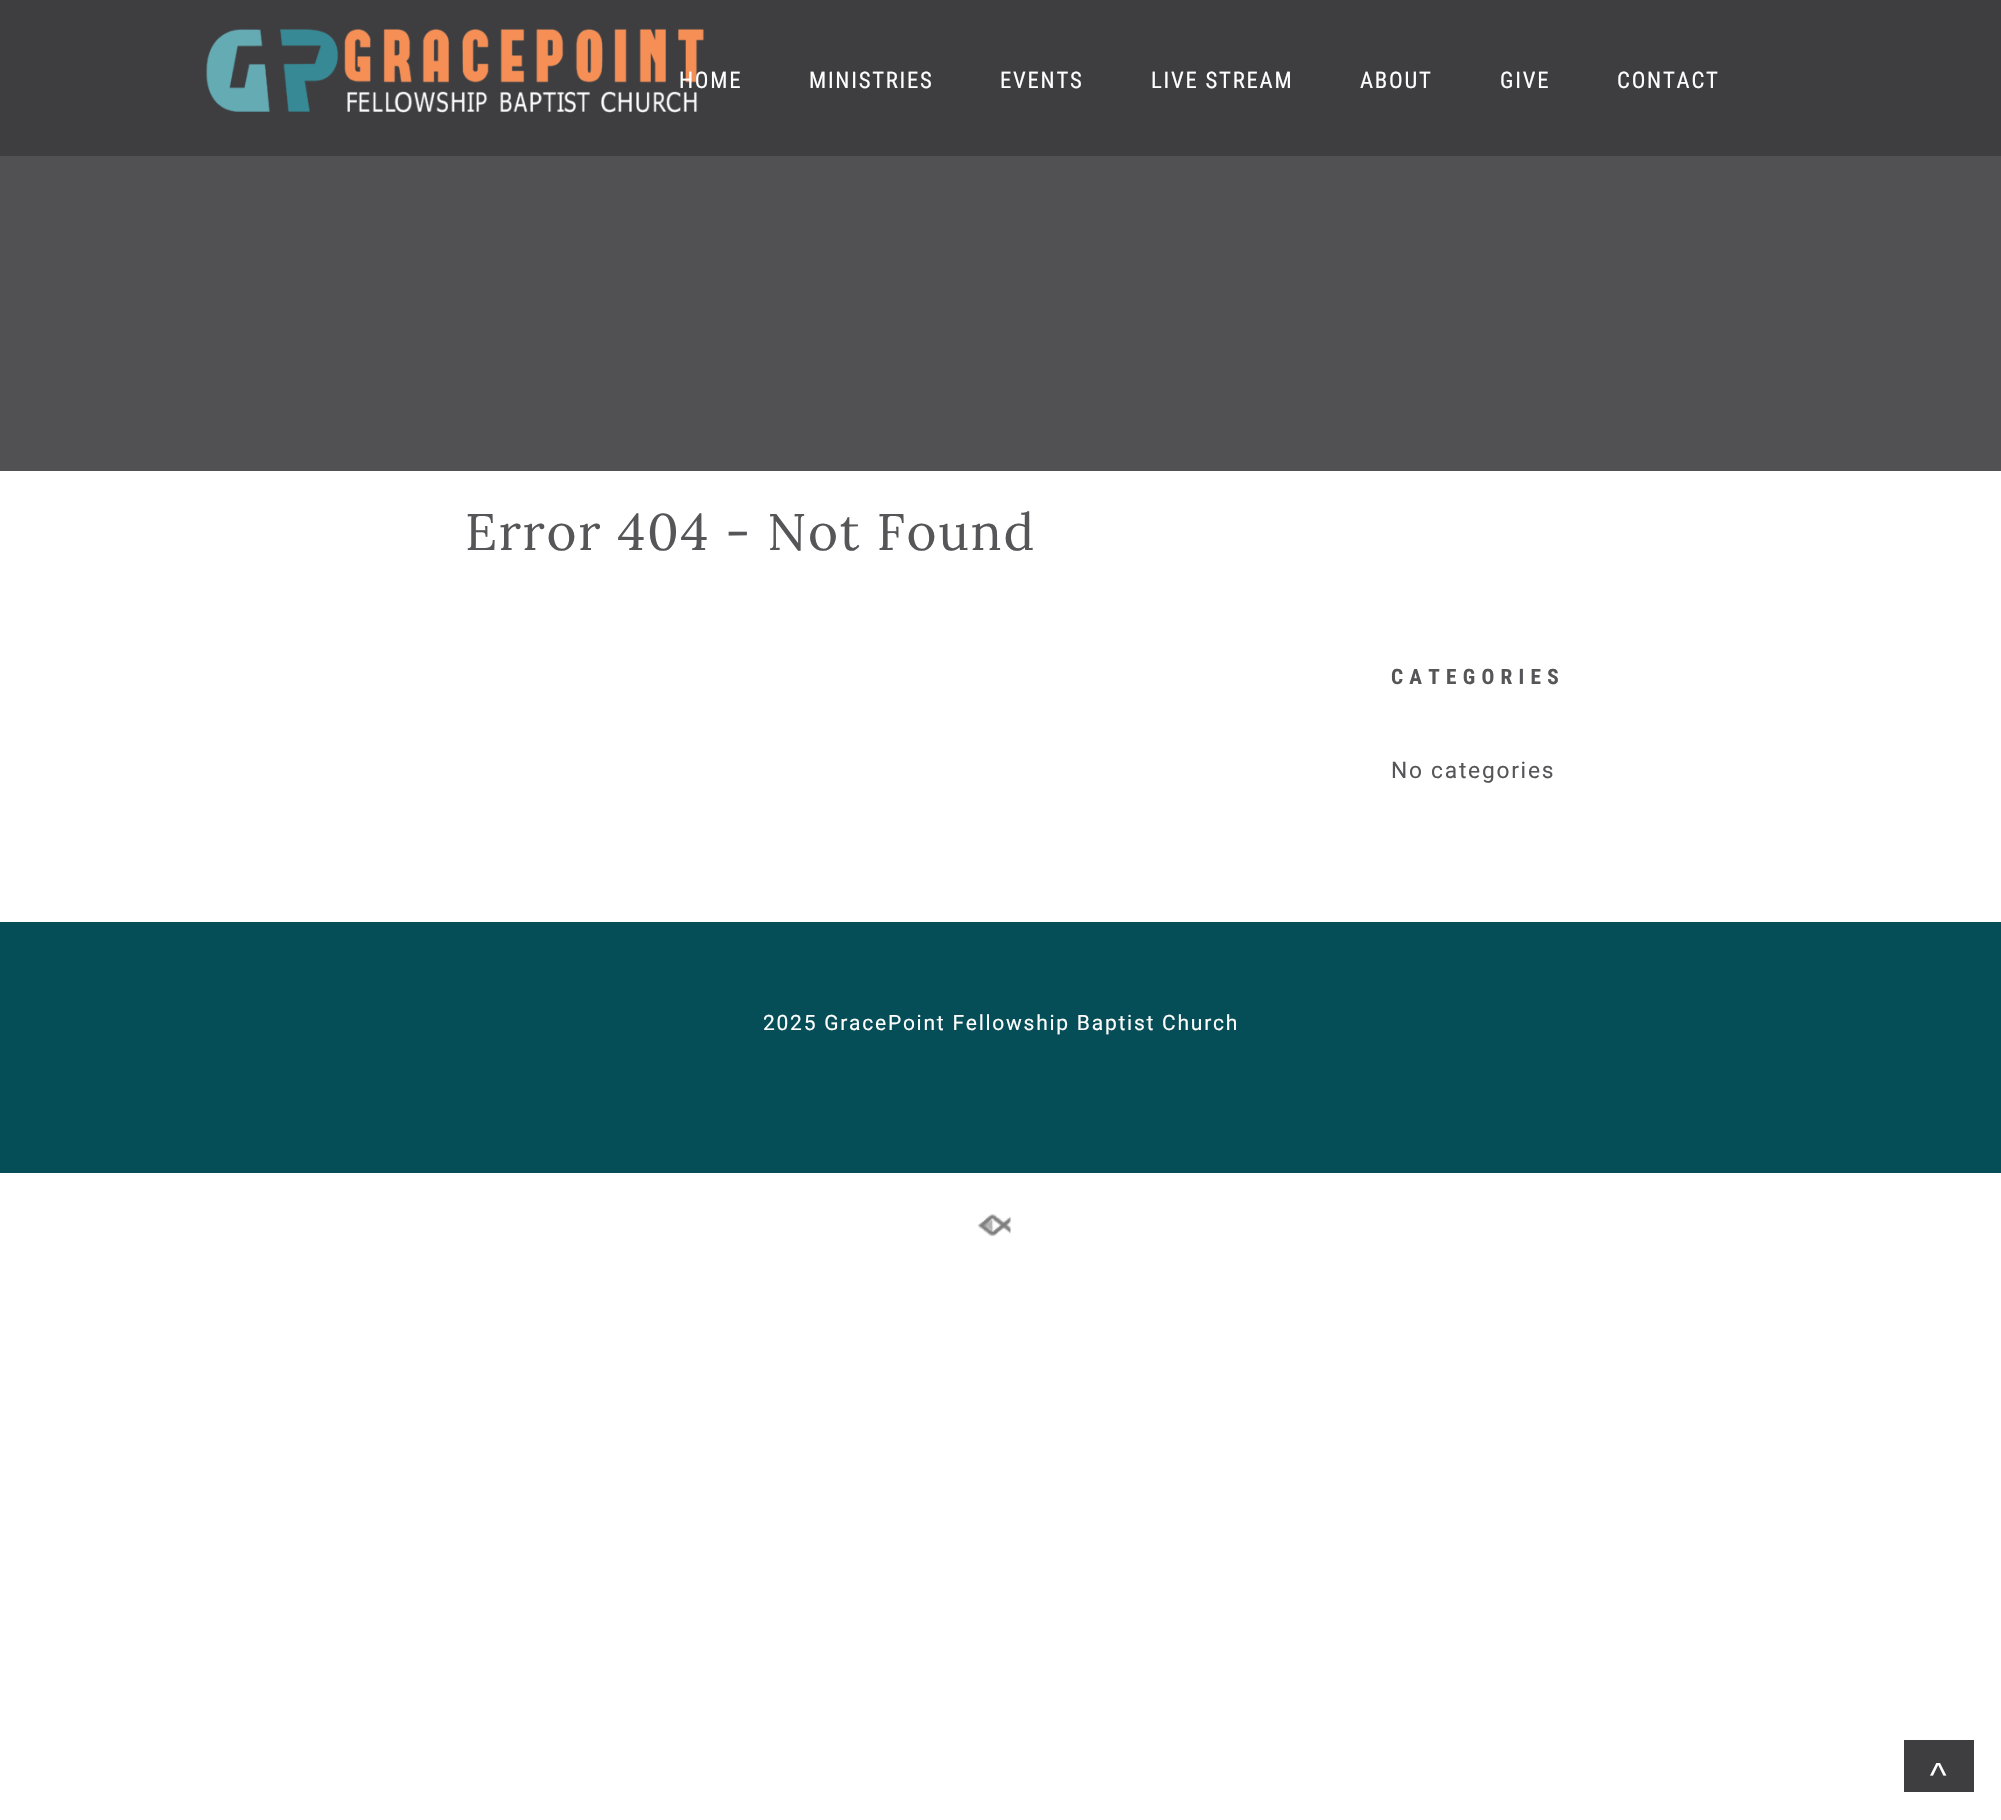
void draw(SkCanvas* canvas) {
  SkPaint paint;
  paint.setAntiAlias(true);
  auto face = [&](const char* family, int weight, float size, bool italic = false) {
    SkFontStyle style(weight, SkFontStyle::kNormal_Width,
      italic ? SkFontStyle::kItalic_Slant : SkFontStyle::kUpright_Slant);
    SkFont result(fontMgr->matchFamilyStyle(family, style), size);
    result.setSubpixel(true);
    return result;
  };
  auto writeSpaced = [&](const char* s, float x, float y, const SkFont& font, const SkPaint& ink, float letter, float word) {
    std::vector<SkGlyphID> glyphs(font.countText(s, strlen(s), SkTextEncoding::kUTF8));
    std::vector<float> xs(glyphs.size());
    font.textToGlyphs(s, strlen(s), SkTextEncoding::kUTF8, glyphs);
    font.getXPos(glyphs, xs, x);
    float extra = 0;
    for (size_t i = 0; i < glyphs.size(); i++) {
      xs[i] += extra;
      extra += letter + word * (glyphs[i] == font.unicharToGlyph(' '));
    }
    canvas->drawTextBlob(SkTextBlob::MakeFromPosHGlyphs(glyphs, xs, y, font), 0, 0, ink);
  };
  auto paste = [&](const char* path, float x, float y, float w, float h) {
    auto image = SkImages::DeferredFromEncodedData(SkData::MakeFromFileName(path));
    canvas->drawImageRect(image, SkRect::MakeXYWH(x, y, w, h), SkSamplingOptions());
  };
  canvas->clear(0xffffffff);
  paint.setColor(0xff3e3e41);
  canvas->drawRect(SkRect::MakeXYWH(0, 0, 2001, 156), paint);
  paste("img/1.png", 206, 28, 499, 85);
  paint.setColor(0xff515154);
  canvas->drawRect(SkRect::MakeXYWH(0, 156, 2001, 315), paint);
  paint.setColor(0xff054d57);
  canvas->drawRect(SkRect::MakeXYWH(0, 922, 2001, 251), paint);
  paste("img/2.png", 978, 1214, 33, 23);
  paint.setColor(0xff3e3e41);
  canvas->drawRect(SkRect::MakeXYWH(1904, 1740, 70, 52), paint);
  auto f0 = face("Roboto Condensed", 400, 22.75f);
  paint.setColor(0xffffffff);
  {
    const struct { const char* s; float x, y; } items[] = {
      {"HOME", 679, 88},
      {"MINISTRIES", 809, 88},
      {"EVENTS", 1000, 88},
      {"LIVE STREAM", 1151, 88},
      {"ABOUT", 1360, 88},
      {"GIVE", 1500, 88},
      {"CONTACT", 1617, 88},
    };
    for (auto [s, x, y] : items) {
      writeSpaced(s, x, y, f0, paint, 1.75f, 0);
    }
  }
  auto f1 = face("Lora", 400, 51.25f);
  paint.setColor(0xff565659);
  writeSpaced("Error 404 - Not Found", 465, 550, f1, paint, 1.75f, 0);
  auto f2 = face("Roboto Condensed", 700, 21.25f);
  writeSpaced("CATEGORIES", 1391, 684, f2, paint, 6.25f, 0);
  auto f3 = face("Roboto", 400, 22.75f);
  writeSpaced("No categories", 1391, 778, f3, paint, 1.75f, 0);
  auto f4 = face("Roboto", 400, 21);
  paint.setColor(0xffffffff);
  writeSpaced("2025 GracePoint Fellowship Baptist Church", 763, 1030, f4, paint, 1.75f, 0);
  auto f5 = face("Liberation Sans", 400, 35);
  writeSpaced("^", 1930, 1787, f5, paint, 1.75f, 0);
}
